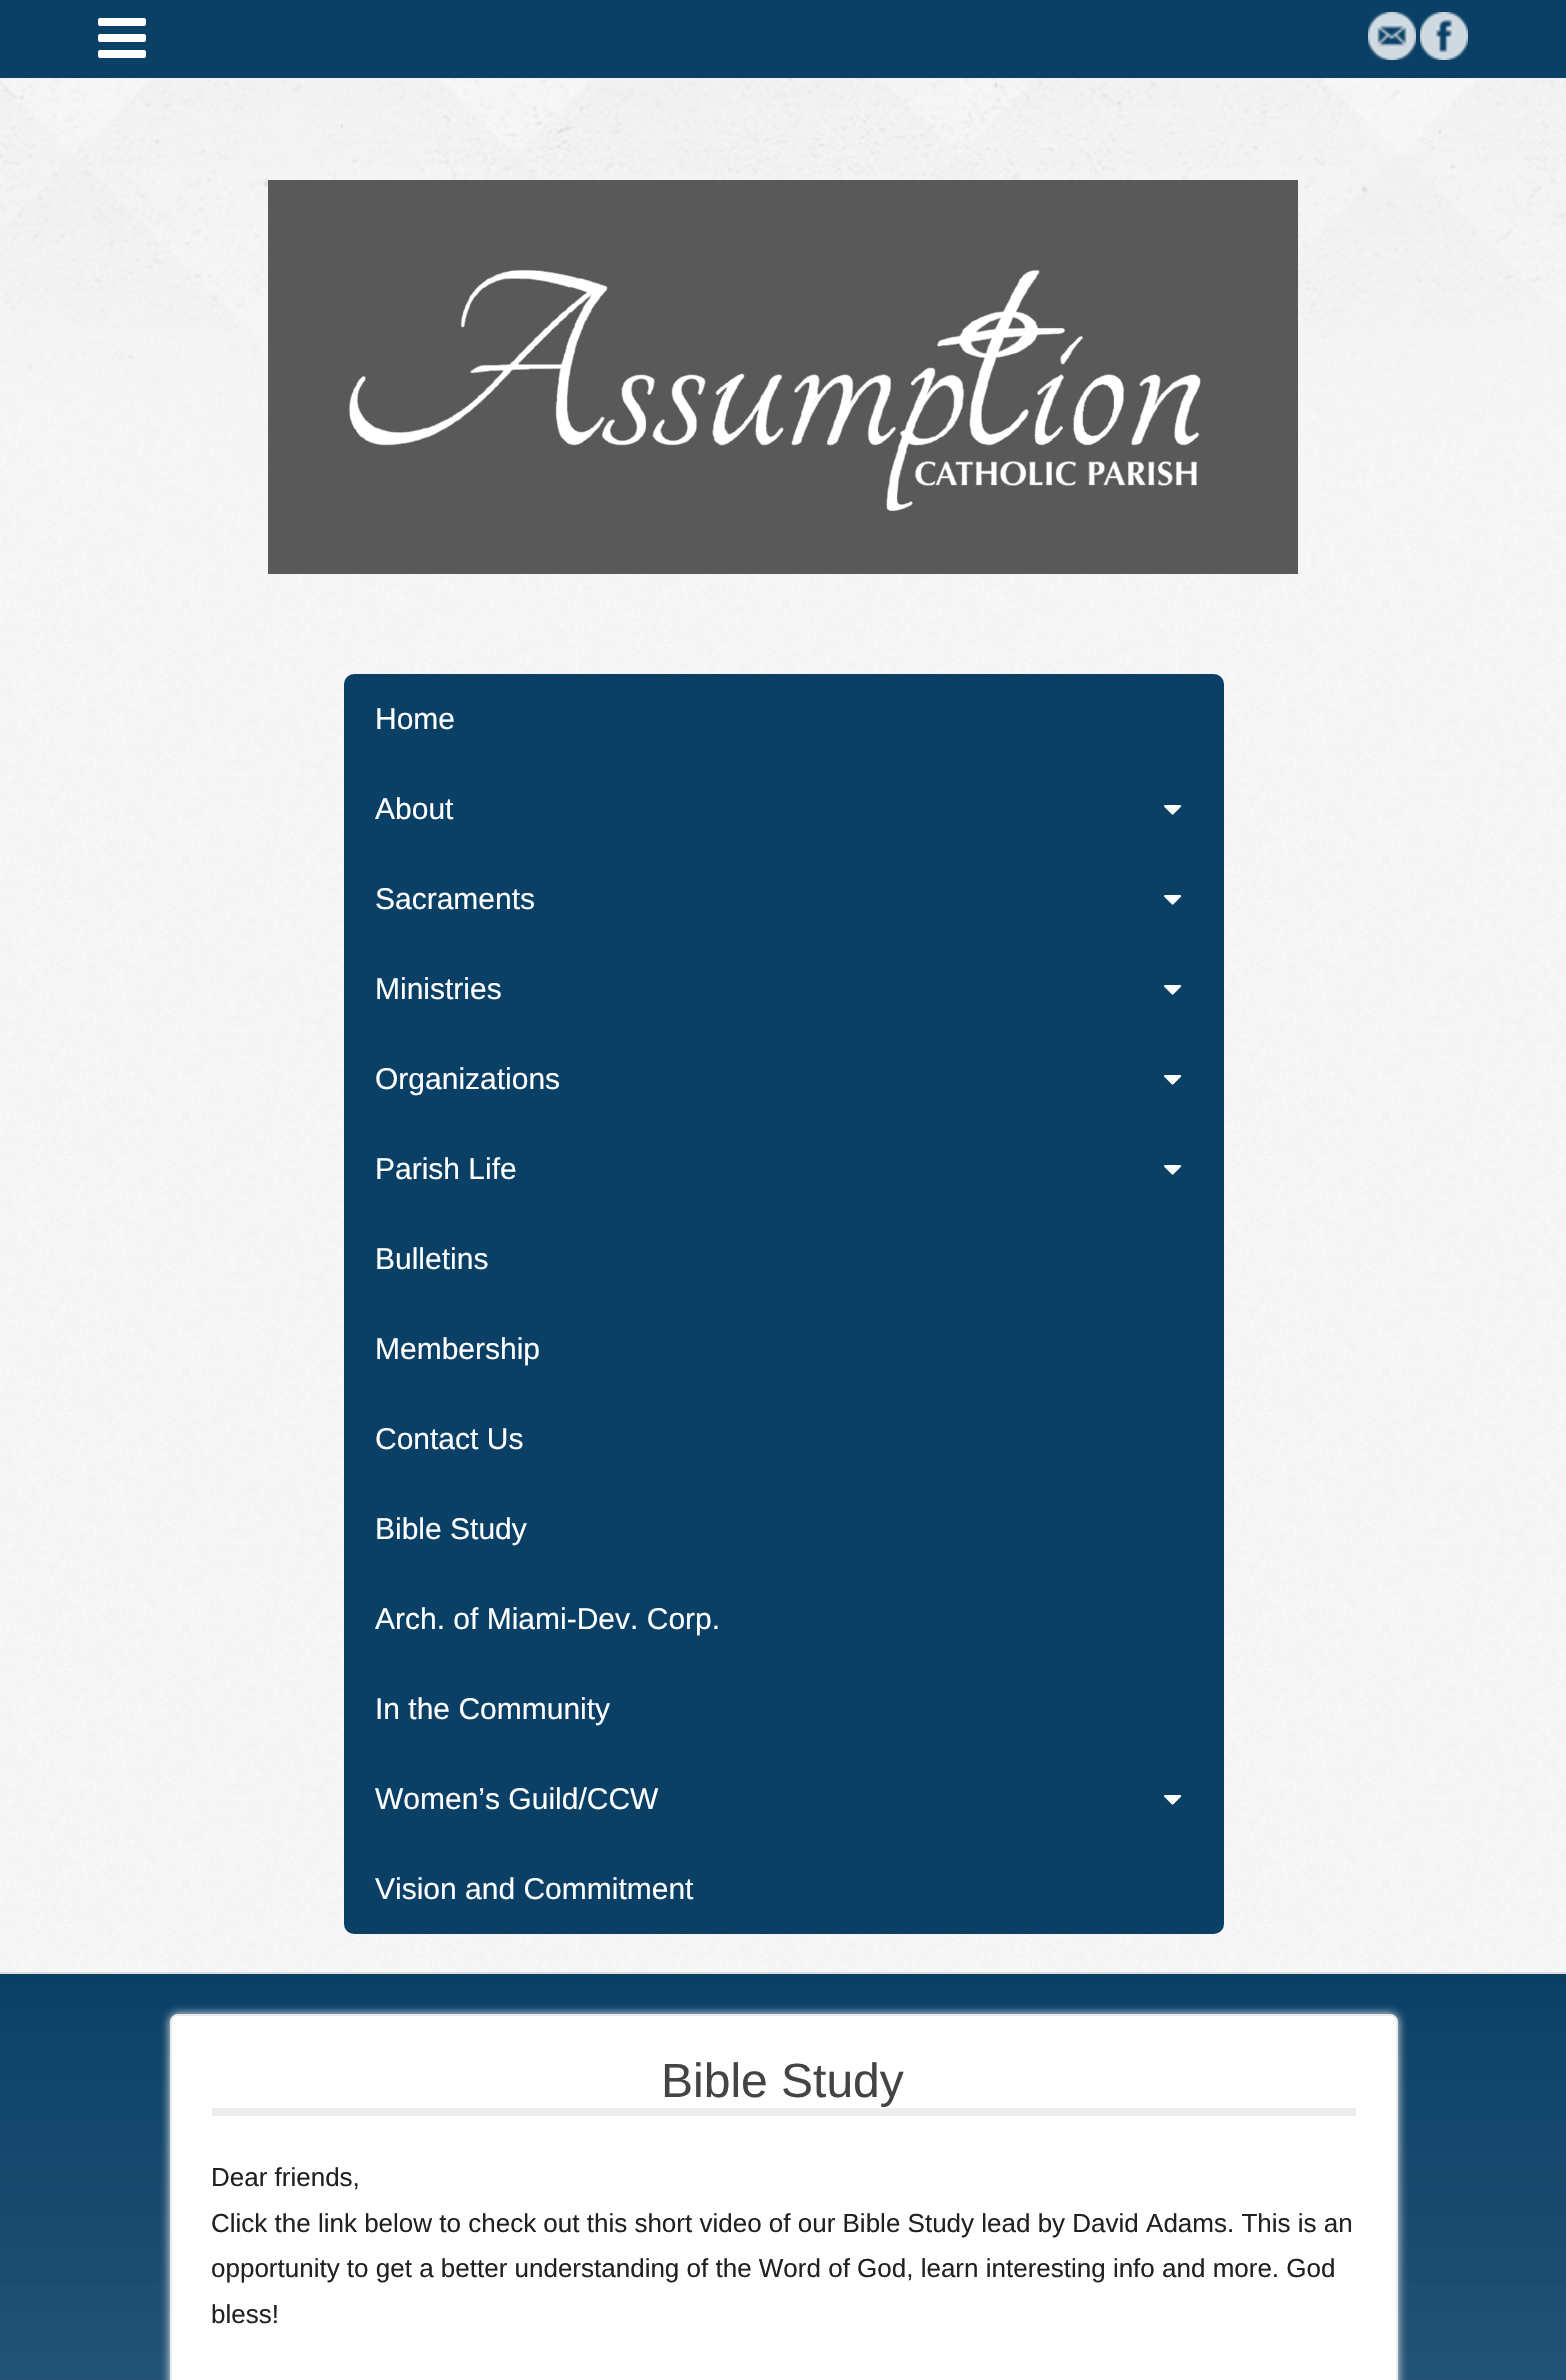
void draw(SkCanvas* canvas) {
  SkPaint paint;
  paint.setAntiAlias(true);
  auto face = [&](const char* family, int weight, float size, bool italic = false) {
    SkFontStyle style(weight, SkFontStyle::kNormal_Width,
      italic ? SkFontStyle::kItalic_Slant : SkFontStyle::kUpright_Slant);
    SkFont result(fontMgr->matchFamilyStyle(family, style), size);
    result.setSubpixel(true);
    return result;
  };
  auto paste = [&](const char* path, float x, float y, float w, float h) {
    auto image = SkImages::DeferredFromEncodedData(SkData::MakeFromFileName(path));
    canvas->drawImageRect(image, SkRect::MakeXYWH(x, y, w, h), SkSamplingOptions());
  };
  canvas->clear(0xffffffff);
  paste("img/1.png", 0, 578, 1566, 1802);
  paste("img/2.png", 0, 78, 1566, 500);
  paint.setColor(0xffdddddd);
  canvas->drawRect(SkRect::MakeXYWH(0, 1972, 1566, 2), paint);
  paint.setColor(0xff0b4066);
  canvas->drawRect(SkRect::MakeXYWH(0, 0, 1566, 78), paint);
  paste("img/3.png", 98, 18, 48, 40);
  paste("img/4.png", 1368, 12, 48, 48);
  paste("img/5.png", 1420, 12, 48, 48);
  paste("img/6.png", 268, 180, 1030, 394);
  canvas->drawRoundRect(SkRect::MakeXYWH(344, 674, 880, 1260), 10, 10, paint);
  paste("img/7.png", 1164, 805, 18, 10);
  paste("img/7.png", 1164, 895, 18, 10);
  paste("img/7.png", 1164, 985, 18, 10);
  paste("img/7.png", 1164, 1075, 18, 10);
  paste("img/7.png", 1164, 1165, 18, 10);
  paste("img/7.png", 1164, 1795, 18, 10);
  paint.setColor(0xffeeeeee);
  paint.setMaskFilter(SkMaskFilter::MakeBlur(kNormal_SkBlurStyle, 5));
  canvas->drawRoundRect(SkRect::MakeXYWH(170, 2014, 1228, 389), 8, 8, paint);
  paint.setMaskFilter(nullptr);
  paint.setColor(0xffffffff);
  canvas->drawRoundRect(SkRect::MakeXYWH(171, 2015, 1226, 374), 7, 7, paint);
  paint.setStroke(true);
  paint.setStrokeWidth(2);
  paint.setColor(0xffeaeaea);
  canvas->drawRoundRect(SkRect::MakeXYWH(171, 2015, 1226, 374), 7, 7, paint);
  paint.setStroke(false);
  paint.setColor(0xffeeeeee);
  canvas->drawRect(SkRect::MakeXYWH(212, 2108, 1144, 8), paint);
  auto f0 = face("Liberation Sans", 400, 30);
  paint.setColor(0xffffffff);
  {
    const struct { const char* s; float x, y; } items[] = {
      {"Home", 375, 729},
      {"About", 375, 819},
      {"Sacraments", 375, 909},
      {"Ministries", 375, 999},
      {"Organizations", 375, 1089},
      {"Parish Life", 375, 1179},
      {"Bulletins", 375, 1269},
      {"Membership", 375, 1359},
      {"Contact Us", 375, 1449},
      {"Bible Study", 375, 1539},
      {"Arch. of Miami-Dev. Corp.", 375, 1629},
      {"In the Community", 375, 1719},
      {"Women’s Guild/CCW", 375, 1809},
      {"Vision and Commitment", 375, 1899},
    };
    for (auto [s, x, y] : items) {
      canvas->drawString(s, x, y, f0, paint);
    }
  }
  auto f1 = face("Liberation Sans", 400, 48);
  paint.setColor(0xff444444);
  canvas->drawString("Bible Study", 661, 2097, f1, paint);
  auto f2 = face("Liberation Sans", 400, 26);
  paint.setColor(0xff212121);
  {
    const struct { const char* s; float x, y; } items[] = {
      {"Dear friends,", 211, 2186},
      {"Click the link below to check out this short video of our Bible Study lead by David Adams. This is an", 211, 2232},
      {"opportunity to get a better understanding of the Word of God, learn interesting info and more. God", 211, 2277},
      {"bless!", 211, 2323},
    };
    for (auto [s, x, y] : items) {
      canvas->drawString(s, x, y, f2, paint);
    }
  }
}
